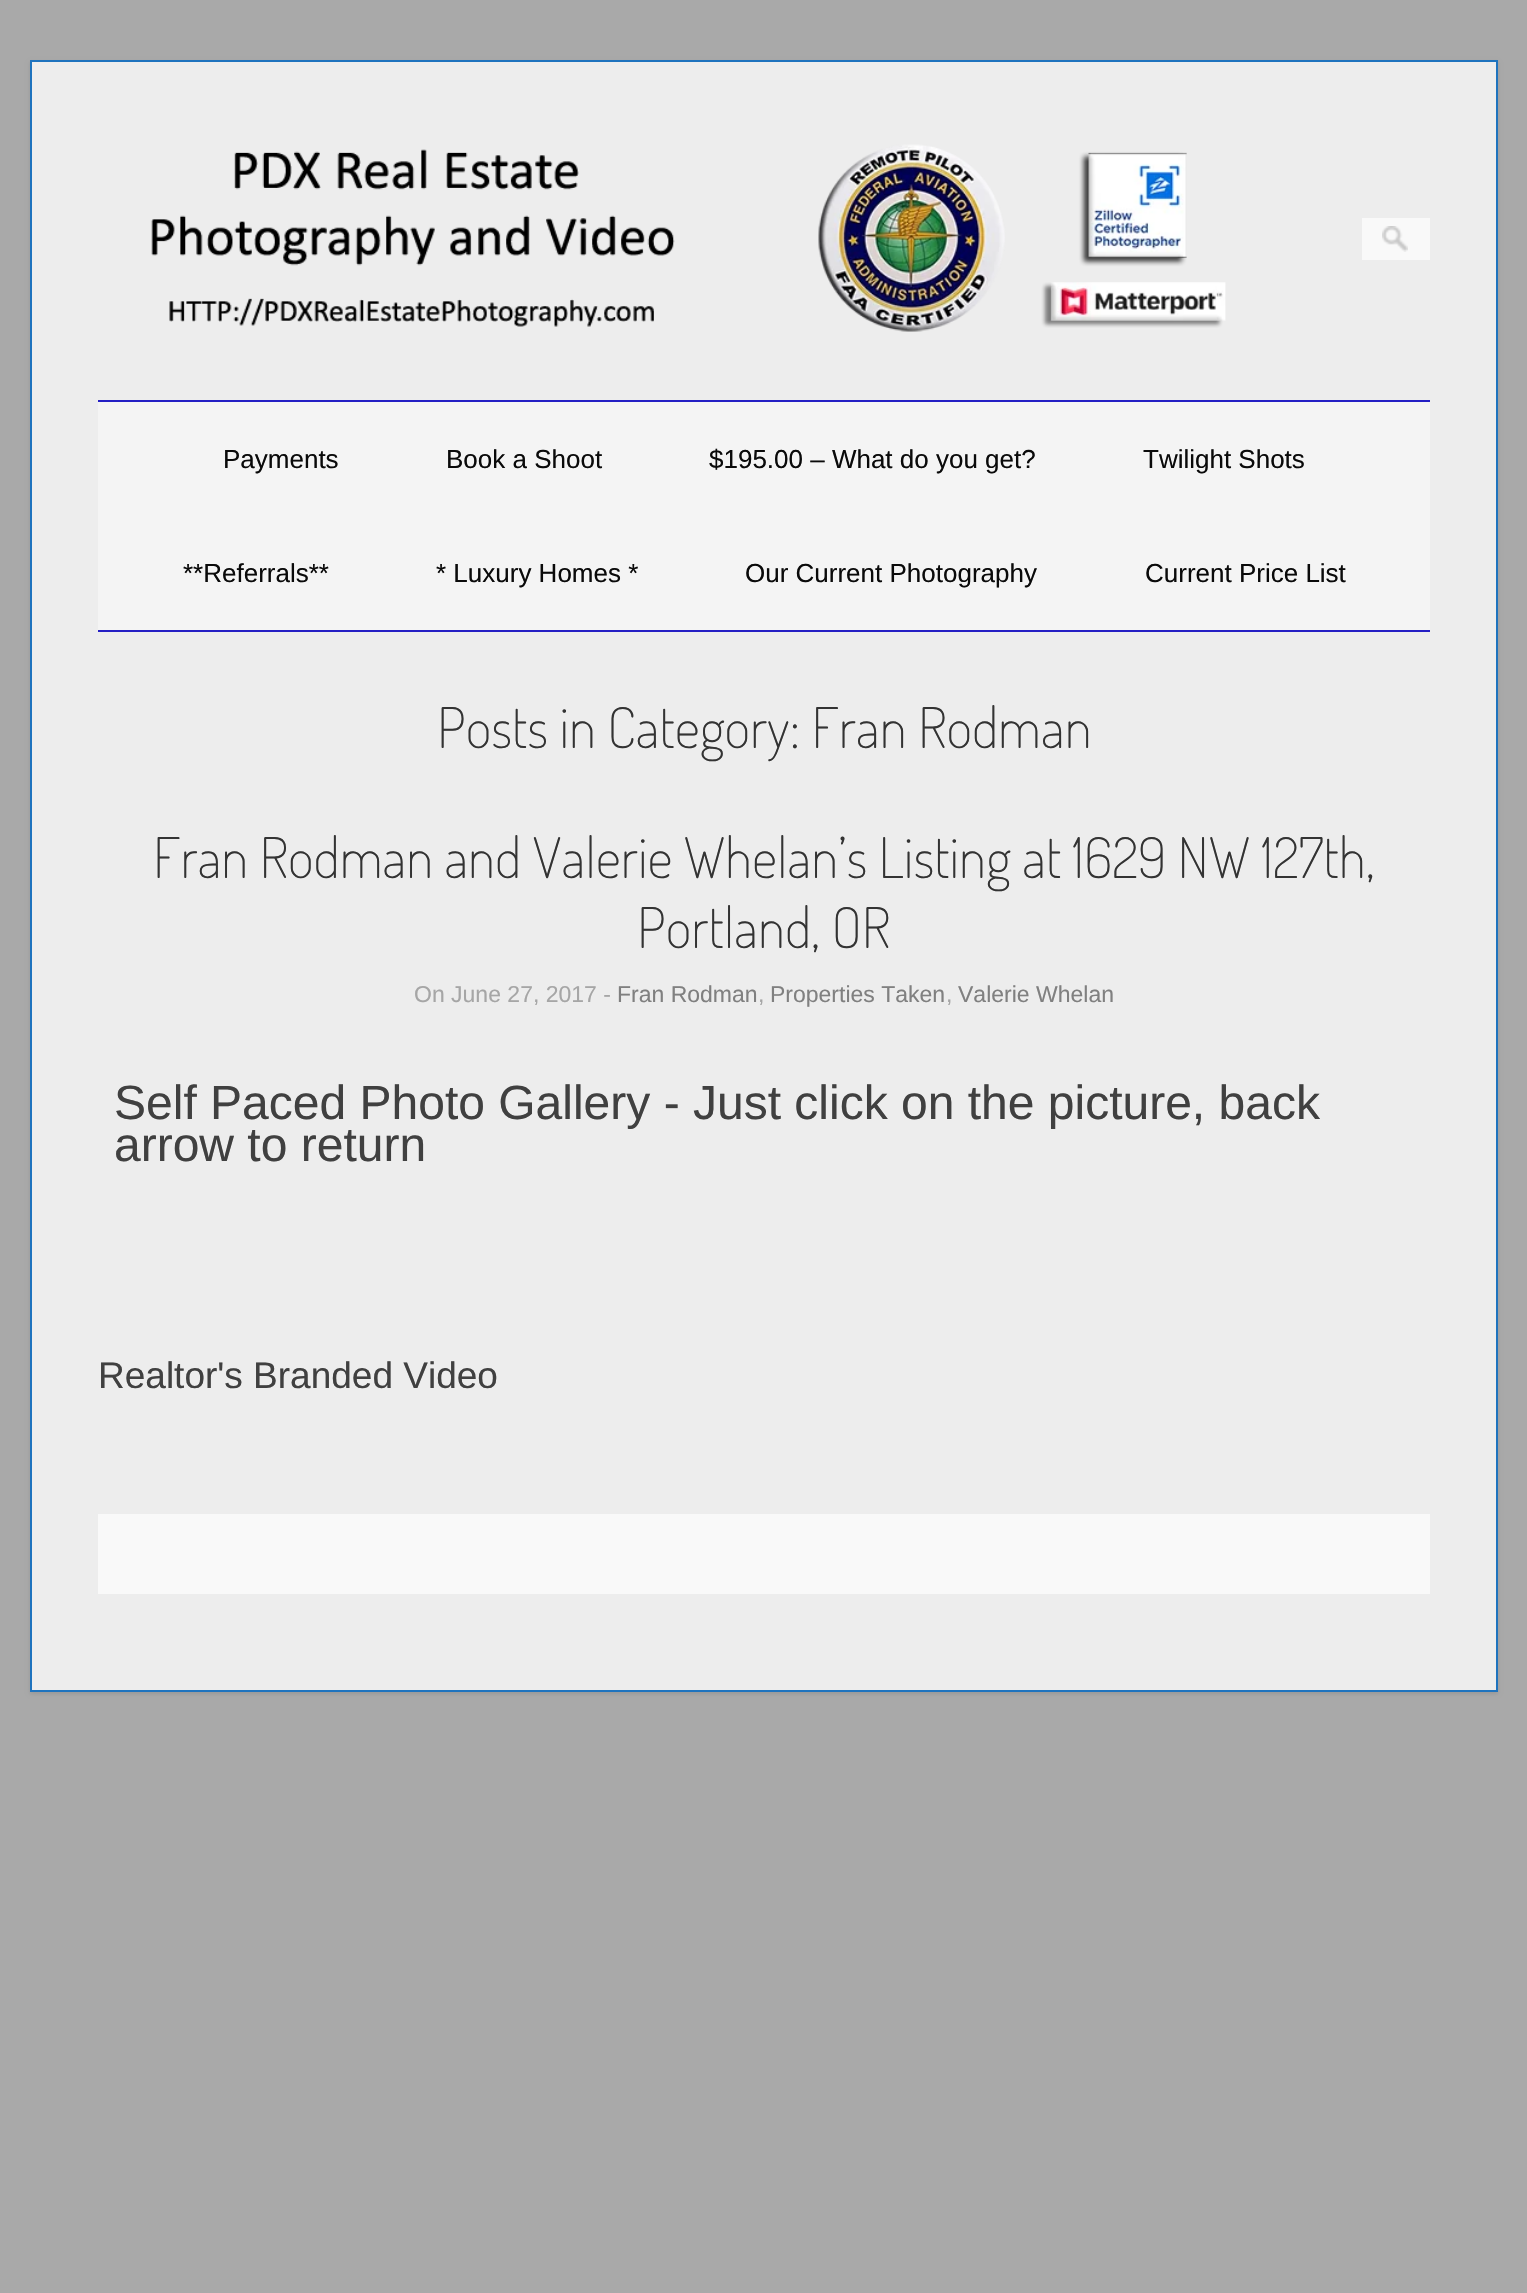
void draw(SkCanvas* canvas) {
  SkPaint paint;
  paint.setAntiAlias(true);
  auto face = [&](const char* family, int weight, float size, bool italic = false) {
    SkFontStyle style(weight, SkFontStyle::kNormal_Width,
      italic ? SkFontStyle::kItalic_Slant : SkFontStyle::kUpright_Slant);
    SkFont result(fontMgr->matchFamilyStyle(family, style), size);
    result.setSubpixel(true);
    return result;
  };
  auto paste = [&](const char* path, float x, float y, float w, float h) {
    auto image = SkImages::DeferredFromEncodedData(SkData::MakeFromFileName(path));
    canvas->drawImageRect(image, SkRect::MakeXYWH(x, y, w, h), SkSamplingOptions());
  };
  canvas->clear(0xffa9a9a9);
  paint.setColor(0x1a000000);
  paint.setMaskFilter(SkMaskFilter::MakeBlur(kNormal_SkBlurStyle, 2));
  canvas->drawRect(SkRect::MakeXYWH(30, 62, 1468, 1632), paint);
  paint.setMaskFilter(nullptr);
  paint.setColor(0xffededed);
  canvas->drawRect(SkRect::MakeXYWH(31, 61, 1466, 1630), paint);
  paint.setStroke(true);
  paint.setStrokeWidth(2);
  paint.setColor(0xff1e73be);
  canvas->drawRect(SkRect::MakeXYWH(31, 61, 1466, 1630), paint);
  paste("img/1.png", 151, 144, 1075, 188);
  paint.setStroke(false);
  paint.setColor(0xfff9f9f9);
  canvas->drawRect(SkRect::MakeXYWH(1362, 218, 68, 42), paint);
  paste("img/2.png", 1382, 226, 26, 26);
  {
    const struct { float x, y, w, h; SkColor color; } items[] = {
      {98, 402, 1332, 228, 0xfff4f4f4},
      {98, 400, 1332, 2, 0xff241fc4},
      {98, 630, 1332, 2, 0xff241fc4},
      {98, 1514, 1332, 80, 0xfff9f9f9},
    };
    for (auto [x, y, w, h, color] : items) {
      paint.setColor(color);
      canvas->drawRect(SkRect::MakeXYWH(x, y, w, h), paint);
    }
  }
  auto f0 = face("Liberation Sans", 400, 26);
  paint.setColor(0xff0a0a0a);
  {
    const struct { const char* s; float x, y; } items[] = {
      {"Payments", 223, 468},
      {"Book a Shoot", 446, 468},
      {"$195.00 – What do you get?", 709, 468},
      {"Twilight Shots", 1143, 468},
      {"**Referrals**", 183, 582},
      {"* Luxury Homes *", 436, 582},
      {"Our Current Photography", 745, 582},
      {"Current Price List", 1145, 582},
    };
    for (auto [s, x, y] : items) {
      canvas->drawString(s, x, y, f0, paint);
    }
  }
  auto f1 = face("Dosis", 200, 56);
  paint.setColor(0xff333333);
  {
    const struct { const char* s; float x, y; } items[] = {
      {"Posts in Category: Fran Rodman", 437, 748},
      {"Fran Rodman and Valerie Whelan’s Listing at 1629 NW 127th,", 153, 878},
      {"Portland, OR", 637, 948},
    };
    for (auto [s, x, y] : items) {
      canvas->drawString(s, x, y, f1, paint);
    }
  }
  auto f2 = face("Liberation Sans", 400, 23);
  paint.setColor(0xffa6a6a6);
  canvas->drawString("On June 27, 2017 -", 414, 1002, f2, paint);
  paint.setColor(0xff808080);
  canvas->drawString("Fran Rodman", 617, 1002, f2, paint);
  paint.setColor(0xffa6a6a6);
  canvas->drawString(",", 758, 1002, f2, paint);
  paint.setColor(0xff808080);
  canvas->drawString("Properties Taken", 770, 1002, f2, paint);
  paint.setColor(0xffa6a6a6);
  canvas->drawString(",", 946, 1002, f2, paint);
  paint.setColor(0xff808080);
  canvas->drawString("Valerie Whelan", 958, 1002, f2, paint);
  auto f3 = face("Liberation Sans", 400, 48);
  paint.setColor(0xff404040);
  canvas->drawString("Self Paced Photo Gallery - Just click on the picture, back", 114, 1119, f3, paint);
  canvas->drawString("arrow to return", 114, 1161, f3, paint);
  auto f4 = face("Liberation Sans", 400, 37);
  canvas->drawString("Realtor's Branded Video", 98, 1388, f4, paint);
}
